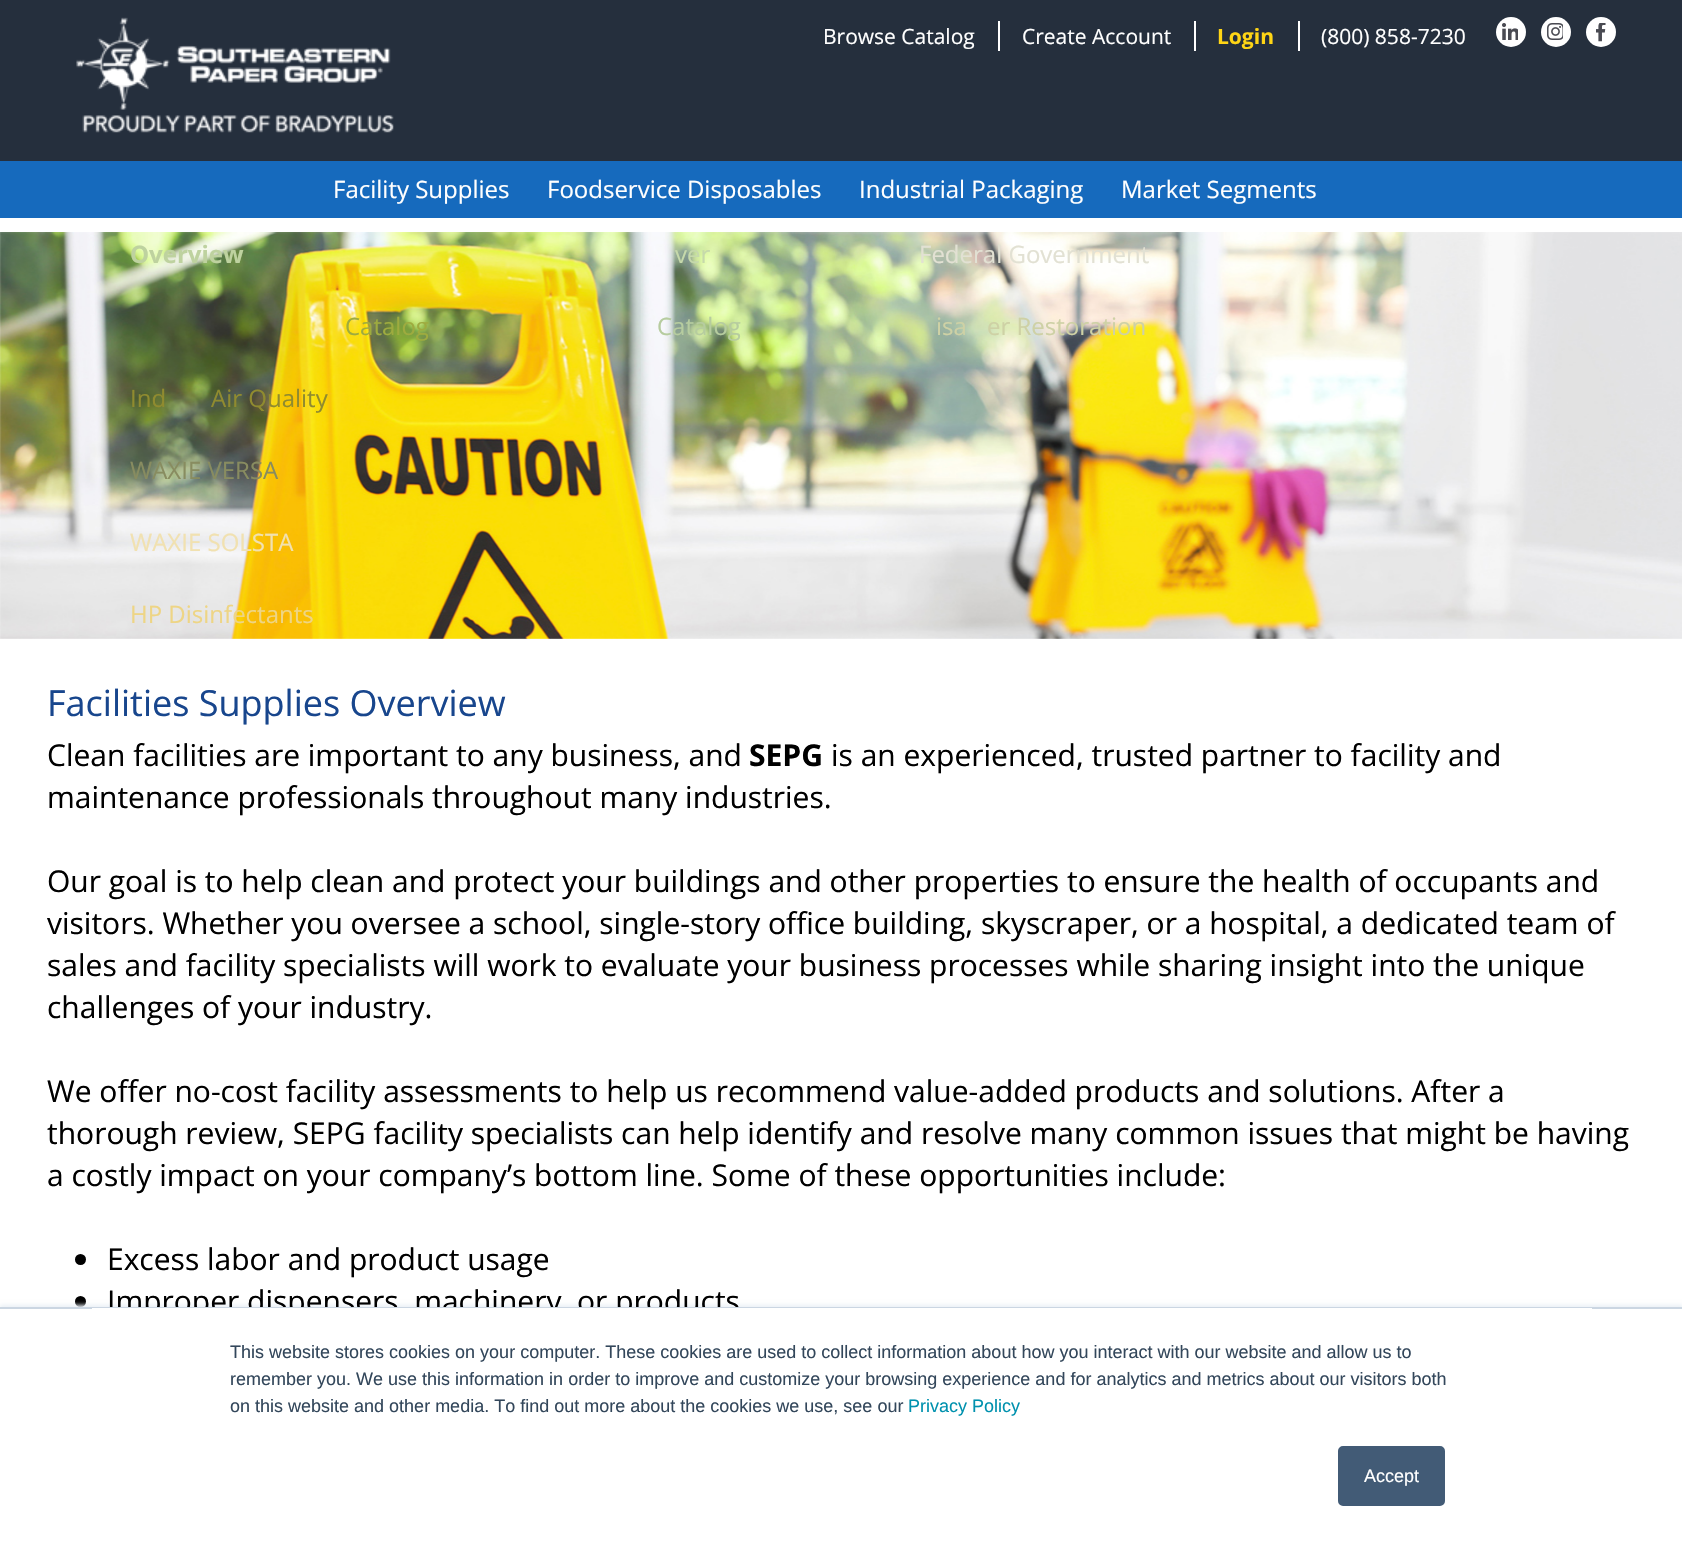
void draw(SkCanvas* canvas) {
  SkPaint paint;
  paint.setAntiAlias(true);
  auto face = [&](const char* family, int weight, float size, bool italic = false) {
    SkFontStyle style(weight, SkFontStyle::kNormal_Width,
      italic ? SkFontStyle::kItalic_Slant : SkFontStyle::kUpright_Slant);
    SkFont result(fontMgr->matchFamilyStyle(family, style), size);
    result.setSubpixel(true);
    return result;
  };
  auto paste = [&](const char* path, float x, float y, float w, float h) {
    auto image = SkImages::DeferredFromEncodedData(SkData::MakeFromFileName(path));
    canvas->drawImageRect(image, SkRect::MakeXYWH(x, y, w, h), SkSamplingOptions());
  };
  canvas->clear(0xffffffff);
  paint.setColor(0xff252f3d);
  canvas->drawRect(SkRect::MakeXYWH(0, 0, 1682, 161), paint);
  paste("img/1.png", 76, 17, 318, 116);
  {
    const struct { float x, y, w, h; SkColor color; } items[] = {
      {998, 21, 2, 30, 0xffffffff},
      {1194, 21, 2, 30, 0xffffffff},
      {1298, 21, 2, 30, 0xffffffff},
    };
    for (auto [x, y, w, h, color] : items) {
      paint.setColor(color);
      canvas->drawRect(SkRect::MakeXYWH(x, y, w, h), paint);
    }
  }
  canvas->drawCircle(1511, 32, 15, paint);
  paste("img/2.png", 1502, 23, 16, 17);
  canvas->drawCircle(1556, 32, 15, paint);
  paste("img/3.png", 1547, 23, 16, 17);
  canvas->drawCircle(1601, 32, 15, paint);
  paste("img/4.png", 1596, 23, 10, 19);
  paint.setColor(0xff166abd);
  canvas->drawRect(SkRect::MakeXYWH(0, 161, 1682, 57), paint);
  paste("img/5.png", 0, 232, 1682, 407);
  paint.setColor(0xff000000);
  canvas->drawCircle(80.5f, 1259.5f, 5.5f, paint);
  canvas->drawCircle(80.5f, 1301.5f, 5.5f, paint);
  paint.setColor(0xffeaf0f6);
  paint.setMaskFilter(SkMaskFilter::MakeBlur(kNormal_SkBlurStyle, 2));
  canvas->drawRect(SkRect::MakeXYWH(0, 1305, 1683, 239), paint);
  paint.setMaskFilter(nullptr);
  auto f0 = face("Open Sans", 400, 21);
  paint.setColor(0xffffffff);
  canvas->drawString("Browse Catalog", 823, 44, f0, paint);
  canvas->drawString("Create Account", 1022, 44, f0, paint);
  auto f1 = face("Open Sans", 700, 21);
  paint.setColor(0xffffd515);
  canvas->drawString("Login", 1217, 44, f1, paint);
  paint.setColor(0xffffffff);
  canvas->drawString("(800) 858-7230", 1321, 44, f0, paint);
  auto f2 = face("Open Sans", 400, 24);
  canvas->drawString("Facility Supplies", 333, 198, f2, paint);
  auto f3 = face("Open Sans", 700, 24);
  paint.setColor(0xffbed29f);
  canvas->drawString("Overview", 130, 263, f3, paint);
  paint.setColor(0xff908b2f);
  canvas->drawString("Ind", 130, 407, f2, paint);
  canvas->drawString("Air Quality", 211, 407, f2, paint);
  paint.setColor(0xff888c60);
  canvas->drawString("WAXIE VERSA", 130, 479, f2, paint);
  paint.setColor(0xfff1e1b0);
  canvas->drawString("WAXIE SOLSTA", 130, 551, f2, paint);
  paint.setColor(0xffeed585);
  canvas->drawString("HP Disinfectants", 130, 623, f2, paint);
  paint.setColor(0xffffffff);
  canvas->drawString("Foodservice Disposables", 547, 198, f2, paint);
  paint.setColor(0xff9eab3f);
  canvas->drawString("Catalog", 345, 335, f2, paint);
  paint.setColor(0xffffffff);
  canvas->drawString("Industrial Packaging", 859, 198, f2, paint);
  paint.setColor(0xffc6d9ab);
  canvas->drawString("ver", 675, 263, f2, paint);
  paint.setColor(0xffb6cc9f);
  canvas->drawString("Catalog", 657, 335, f2, paint);
  paint.setColor(0xffffffff);
  canvas->drawString("Market Segments", 1121, 198, f2, paint);
  paint.setColor(0xffe2e1d3);
  canvas->drawString("Federal Government", 919, 263, f2, paint);
  paint.setColor(0xffced1a5);
  canvas->drawString("isa", 936, 335, f2, paint);
  canvas->drawString("er Restoration", 987, 335, f2, paint);
  auto f4 = face("Open Sans", 400, 36);
  paint.setColor(0xff18468d);
  canvas->drawString("Facilities Supplies Overview", 47, 716, f4, paint);
  auto f5 = face("Open Sans", 400, 30);
  paint.setColor(0xff000000);
  canvas->drawString("Clean facilities are important to any business, and", 47, 766, f5, paint);
  auto f6 = face("Open Sans", 700, 30);
  canvas->drawString("SEPG", 749, 766, f6, paint);
  {
    const struct { const char* s; float x, y; } items[] = {
      {"is an experienced, trusted partner to facility and", 831, 766},
      {"maintenance professionals throughout many industries.", 47, 808},
      {"Our goal is to help clean and protect your buildings and other properties to ensure the health of occupants and", 47, 892},
      {"visitors. Whether you oversee a school, single-story office building, skyscraper, or a hospital, a dedicated team of", 47, 934},
      {"sales and facility specialists will work to evaluate your business processes while sharing insight into the unique", 47, 976},
      {"challenges of your industry.", 47, 1018},
      {"We offer no-cost facility assessments to help us recommend value-added products and solutions. After a", 47, 1102},
      {"thorough review, SEPG facility specialists can help identify and resolve many common issues that might be having", 47, 1144},
      {"a costly impact on your company’s bottom line. Some of these opportunities include:", 47, 1186},
      {"Excess labor and product usage", 107, 1270},
      {"Improper dispensers, machinery, or products", 107, 1312},
    };
    for (auto [s, x, y] : items) {
      canvas->drawString(s, x, y, f5, paint);
    }
  }
  {
    const struct { float x, y, w, h; SkColor color; } items[] = {
      {0, 1309, 1682, 235, 0xffffffff},
      {0, 1307, 1682, 2, 0xffcbd6e2},
      {92, 1308, 1500, 1, 0xffffffff},
    };
    for (auto [x, y, w, h, color] : items) {
      paint.setColor(color);
      canvas->drawRect(SkRect::MakeXYWH(x, y, w, h), paint);
    }
  }
  auto f7 = face("Liberation Sans", 400, 18);
  paint.setColor(0xff33475b);
  {
    const struct { const char* s; float x, y; } items[] = {
      {"This website stores cookies on your computer. These cookies are used to collect information about how you interact with our website and allow us to", 230, 1358},
      {"remember you. We use this information in order to improve and customize your browsing experience and for analytics and metrics about our visitors both", 230, 1385},
      {"on this website and other media. To find out more about the cookies we use, see our", 230, 1412},
    };
    for (auto [s, x, y] : items) {
      canvas->drawString(s, x, y, f7, paint);
    }
  }
  paint.setColor(0xff0091ae);
  canvas->drawString("Privacy Policy", 908, 1412, f7, paint);
  paint.setColor(0xff425b76);
  canvas->drawRoundRect(SkRect::MakeXYWH(1339, 1447, 105, 58), 4, 4, paint);
  paint.setStroke(true);
  paint.setStrokeWidth(2);
  canvas->drawRoundRect(SkRect::MakeXYWH(1339, 1447, 105, 58), 4, 4, paint);
  paint.setStroke(false);
  paint.setColor(0xffffffff);
  canvas->drawString("Accept", 1364, 1482, f7, paint);
}
